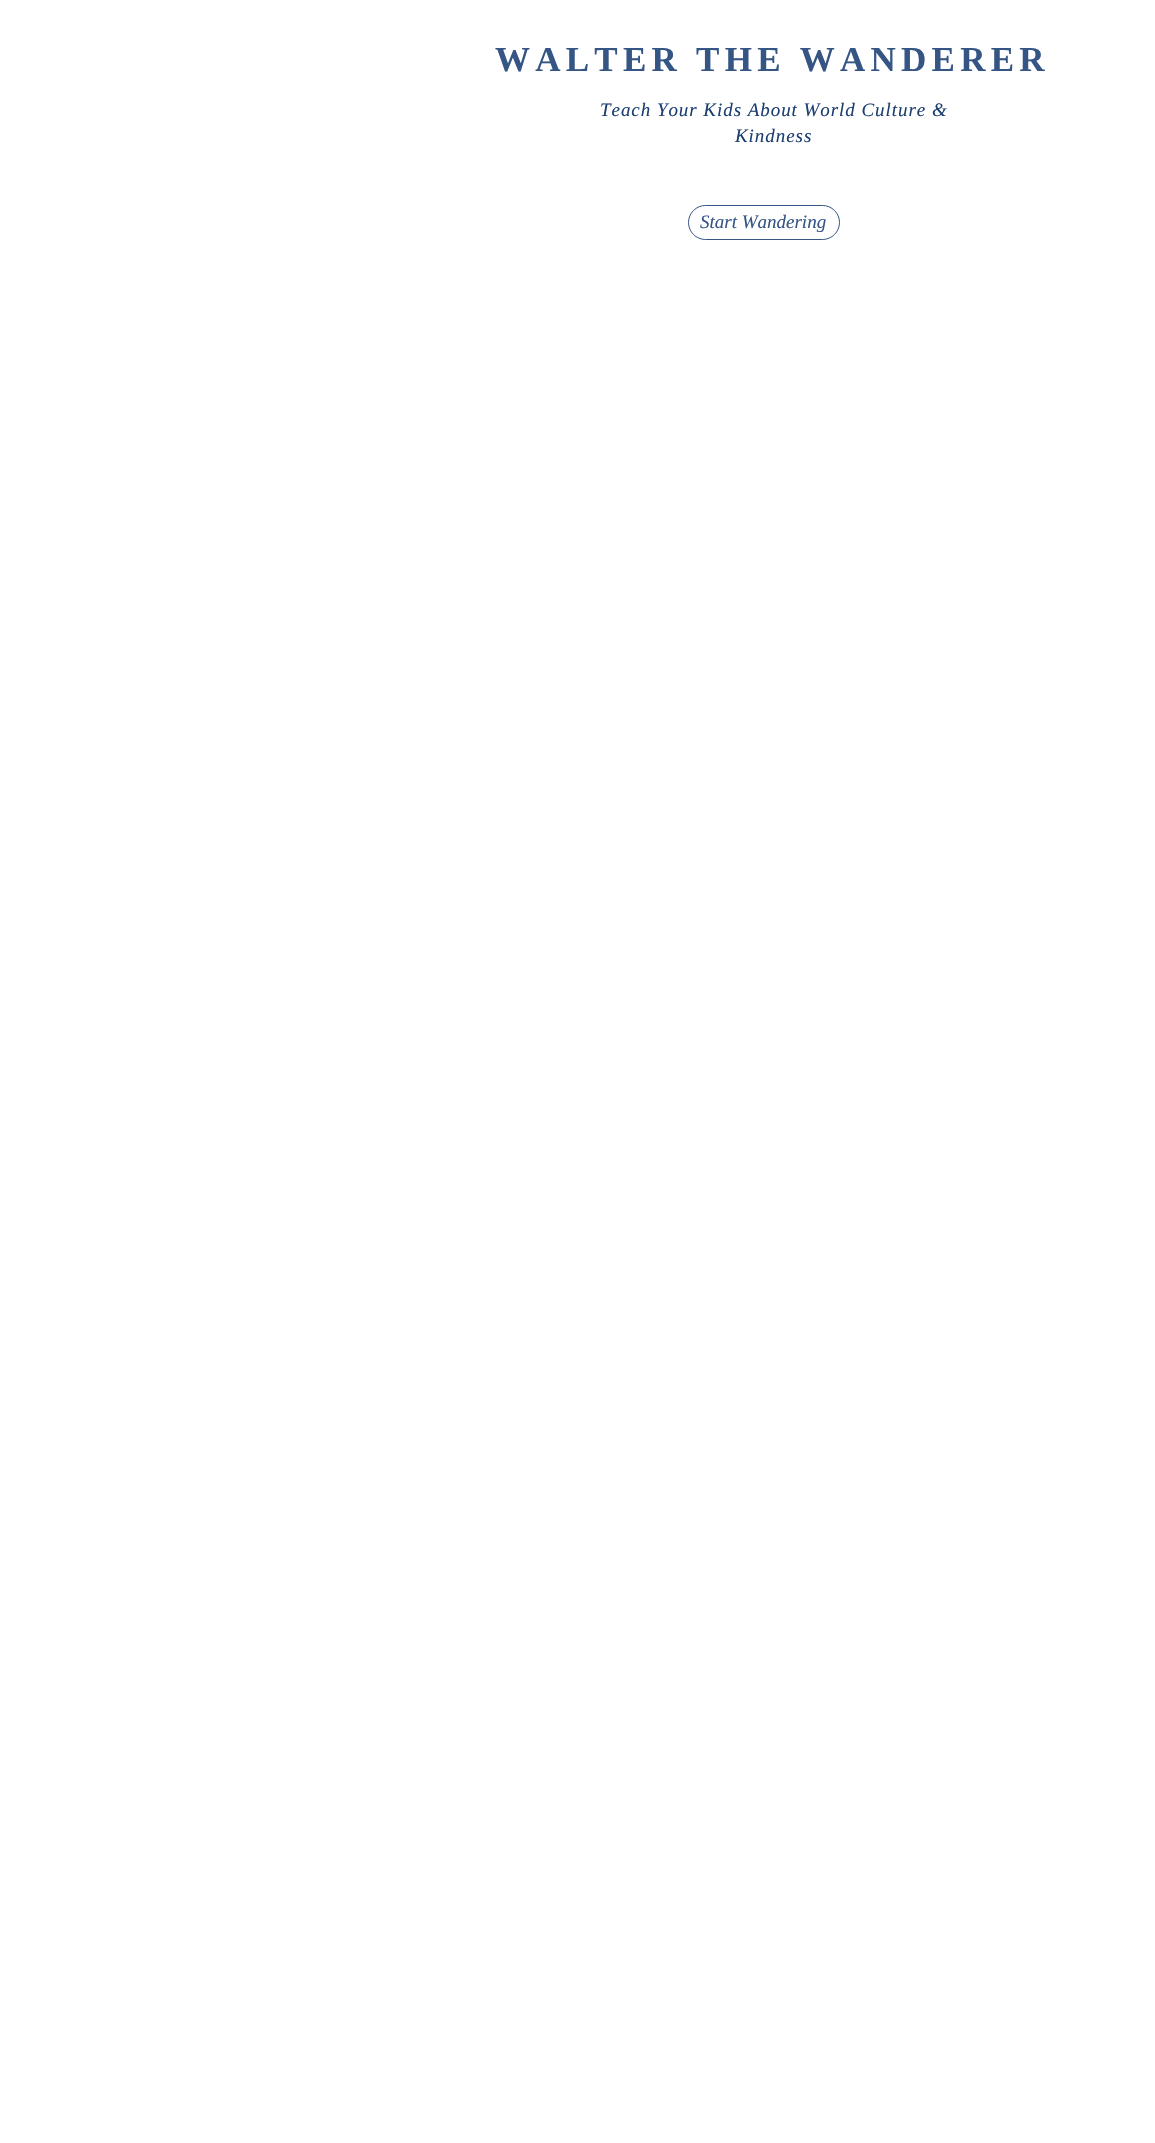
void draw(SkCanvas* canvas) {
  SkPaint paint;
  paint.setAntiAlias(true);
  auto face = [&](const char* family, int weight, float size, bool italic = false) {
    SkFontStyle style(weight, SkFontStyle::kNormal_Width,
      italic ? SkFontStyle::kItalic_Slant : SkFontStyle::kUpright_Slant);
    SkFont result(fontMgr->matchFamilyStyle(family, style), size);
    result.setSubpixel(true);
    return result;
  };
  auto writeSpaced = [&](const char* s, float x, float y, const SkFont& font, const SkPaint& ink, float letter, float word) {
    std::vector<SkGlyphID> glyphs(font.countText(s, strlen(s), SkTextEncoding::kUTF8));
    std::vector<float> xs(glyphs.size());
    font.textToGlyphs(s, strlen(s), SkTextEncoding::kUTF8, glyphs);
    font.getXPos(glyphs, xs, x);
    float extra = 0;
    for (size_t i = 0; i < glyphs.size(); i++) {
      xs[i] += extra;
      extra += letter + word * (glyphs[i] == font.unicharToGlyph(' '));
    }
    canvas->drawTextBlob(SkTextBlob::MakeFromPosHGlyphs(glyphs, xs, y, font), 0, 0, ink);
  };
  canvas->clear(0xffffffff);
  paint.setStroke(true);
  paint.setStrokeWidth(1);
  paint.setColor(0xff355585);
  canvas->drawRoundRect(SkRect::MakeXYWH(688.5f, 205.5f, 151, 34), 17, 17, paint);
  auto f0 = face("Liberation Serif", 700, 35);
  paint.setStroke(false);
  writeSpaced("WALTER THE WANDERER", 495, 71, f0, paint, 5.25f, 0);
  auto f1 = face("Liberation Serif", 400, 19, true);
  paint.setColor(0xff1c3e70);
  writeSpaced("Teach Your Kids About World Culture &", 600, 116, f1, paint, 0.95f, 0);
  writeSpaced("Kindness", 735, 142, f1, paint, 0.95f, 0);
  paint.setColor(0xff355585);
  canvas->drawString("Start Wandering", 700, 228, f1, paint);
}
